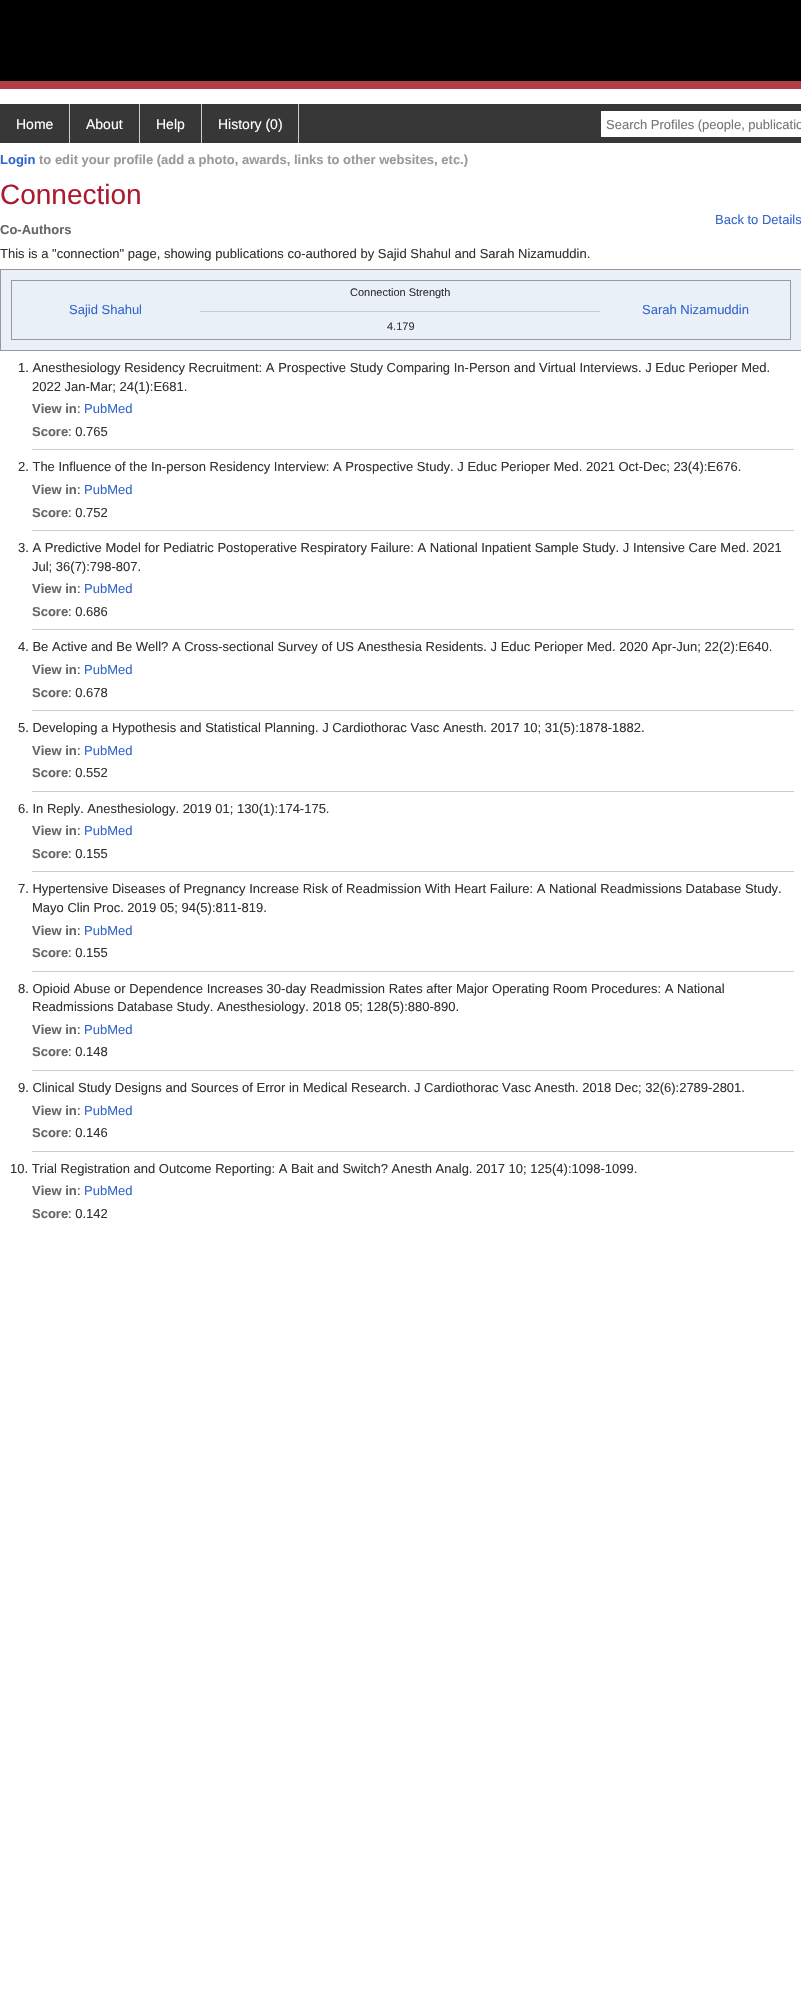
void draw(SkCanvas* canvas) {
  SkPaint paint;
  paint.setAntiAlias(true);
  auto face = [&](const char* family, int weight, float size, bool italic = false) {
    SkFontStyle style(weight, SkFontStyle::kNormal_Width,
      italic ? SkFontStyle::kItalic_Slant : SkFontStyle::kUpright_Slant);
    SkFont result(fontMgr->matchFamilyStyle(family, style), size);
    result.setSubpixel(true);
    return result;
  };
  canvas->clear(0xffffffff);
  {
    const struct { float x, y, w, h; SkColor color; } items[] = {
      {0, 0, 801, 81, 0xff000000},
      {0, 81, 801, 8, 0xffb23f45},
      {0, 104, 801, 39, 0xff383737},
      {69, 104, 1, 39, 0xffcccccc},
      {139, 104, 1, 39, 0xffcccccc},
      {201, 104, 1, 39, 0xffcccccc},
      {298, 104, 1, 39, 0xffcccccc},
      {601, 111, 200, 26, 0xffffffff},
    };
    for (auto [x, y, w, h, color] : items) {
      paint.setColor(color);
      canvas->drawRect(SkRect::MakeXYWH(x, y, w, h), paint);
    }
  }
  paint.setColor(0xffeaf0f8);
  canvas->drawRect(SkRect::MakeXYWH(0.5f, 269.5f, 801, 81), paint);
  paint.setStroke(true);
  paint.setStrokeWidth(1);
  paint.setColor(0xff999999);
  canvas->drawRect(SkRect::MakeXYWH(0.5f, 269.5f, 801, 81), paint);
  canvas->drawRect(SkRect::MakeXYWH(11.5f, 280.5f, 779, 59), paint);
  paint.setStroke(false);
  {
    const struct { float x, y, w, h; SkColor color; } items[] = {
      {200, 311, 400, 1, 0xffcccccc},
      {32, 449, 762, 1, 0xffcccccc},
      {32, 530, 762, 1, 0xffcccccc},
      {32, 629, 762, 1, 0xffcccccc},
      {32, 710, 762, 1, 0xffcccccc},
      {32, 791, 762, 1, 0xffcccccc},
      {32, 871, 762, 1, 0xffcccccc},
      {32, 971, 762, 1, 0xffcccccc},
      {32, 1070, 762, 1, 0xffcccccc},
      {32, 1151, 762, 1, 0xffcccccc},
    };
    for (auto [x, y, w, h, color] : items) {
      paint.setColor(color);
      canvas->drawRect(SkRect::MakeXYWH(x, y, w, h), paint);
    }
  }
  auto f0 = face("Liberation Sans", 400, 14);
  paint.setColor(0xffffffff);
  {
    const struct { const char* s; float x, y; } items[] = {
      {"Home", 16, 129},
      {"About", 86, 129},
      {"Help", 156, 129},
      {"History (0)", 218, 129},
    };
    for (auto [s, x, y] : items) {
      canvas->drawString(s, x, y, f0, paint);
    }
  }
  auto f1 = face("Liberation Sans", 400, 13);
  paint.setColor(0xff757575);
  canvas->drawString("Search Profiles (people, publicatio", 606, 129, f1, paint);
  auto f2 = face("Liberation Sans", 700, 13);
  paint.setColor(0xff3366cc);
  canvas->drawString("Login", 0, 164, f2, paint);
  paint.setColor(0xff999999);
  canvas->drawString("to edit your profile (add a photo, awards, links to other websites, etc.)", 39, 164, f2, paint);
  auto f3 = face("Liberation Sans", 400, 28);
  paint.setColor(0xffac1b30);
  canvas->drawString("Connection", 0, 204, f3, paint);
  paint.setColor(0xff3366cc);
  canvas->drawString("Back to Details", 715, 224, f1, paint);
  paint.setColor(0xff666666);
  canvas->drawString("Co-Authors", 0, 234, f2, paint);
  paint.setColor(0xff333333);
  canvas->drawString("This is a \"connection\" page, showing publications co-authored by Sajid Shahul and Sarah Nizamuddin.", 0, 258, f1, paint);
  paint.setColor(0xff3366cc);
  canvas->drawString("Sajid Shahul", 69, 314, f1, paint);
  auto f4 = face("Liberation Sans", 400, 11);
  paint.setColor(0xff333333);
  canvas->drawString("Connection Strength", 350, 296, f4, paint);
  canvas->drawString("4.179", 387, 330, f4, paint);
  paint.setColor(0xff3366cc);
  canvas->drawString("Sarah Nizamuddin", 642, 314, f1, paint);
  paint.setColor(0xff333333);
  canvas->drawString("1. Anesthesiology Residency Recruitment: A Prospective Study Comparing In-Person and Virtual Interviews. J Educ Perioper Med.", 18, 372, f1, paint);
  canvas->drawString("2022 Jan-Mar; 24(1):E681.", 32, 391, f1, paint);
  paint.setColor(0xff666666);
  canvas->drawString("View in", 32, 413, f2, paint);
  paint.setColor(0xff333333);
  canvas->drawString(":", 77, 413, f1, paint);
  paint.setColor(0xff3366cc);
  canvas->drawString("PubMed", 84, 413, f1, paint);
  paint.setColor(0xff666666);
  canvas->drawString("Score", 32, 436, f2, paint);
  paint.setColor(0xff333333);
  canvas->drawString(": 0.765", 68, 436, f1, paint);
  canvas->drawString("2. The Influence of the In-person Residency Interview: A Prospective Study. J Educ Perioper Med. 2021 Oct-Dec; 23(4):E676.", 18, 471, f1, paint);
  paint.setColor(0xff666666);
  canvas->drawString("View in", 32, 494, f2, paint);
  paint.setColor(0xff333333);
  canvas->drawString(":", 77, 494, f1, paint);
  paint.setColor(0xff3366cc);
  canvas->drawString("PubMed", 84, 494, f1, paint);
  paint.setColor(0xff666666);
  canvas->drawString("Score", 32, 517, f2, paint);
  paint.setColor(0xff333333);
  {
    const struct { const char* s; float x, y; } items[] = {
      {": 0.752", 68, 517},
      {"3. A Predictive Model for Pediatric Postoperative Respiratory Failure: A National Inpatient Sample Study. J Intensive Care Med. 2021", 18, 552},
      {"Jul; 36(7):798-807.", 32, 571},
    };
    for (auto [s, x, y] : items) {
      canvas->drawString(s, x, y, f1, paint);
    }
  }
  paint.setColor(0xff666666);
  canvas->drawString("View in", 32, 593, f2, paint);
  paint.setColor(0xff333333);
  canvas->drawString(":", 77, 593, f1, paint);
  paint.setColor(0xff3366cc);
  canvas->drawString("PubMed", 84, 593, f1, paint);
  paint.setColor(0xff666666);
  canvas->drawString("Score", 32, 616, f2, paint);
  paint.setColor(0xff333333);
  canvas->drawString(": 0.686", 68, 616, f1, paint);
  canvas->drawString("4. Be Active and Be Well? A Cross-sectional Survey of US Anesthesia Residents. J Educ Perioper Med. 2020 Apr-Jun; 22(2):E640.", 18, 651, f1, paint);
  paint.setColor(0xff666666);
  canvas->drawString("View in", 32, 674, f2, paint);
  paint.setColor(0xff333333);
  canvas->drawString(":", 77, 674, f1, paint);
  paint.setColor(0xff3366cc);
  canvas->drawString("PubMed", 84, 674, f1, paint);
  paint.setColor(0xff666666);
  canvas->drawString("Score", 32, 697, f2, paint);
  paint.setColor(0xff333333);
  canvas->drawString(": 0.678", 68, 697, f1, paint);
  canvas->drawString("5. Developing a Hypothesis and Statistical Planning. J Cardiothorac Vasc Anesth. 2017 10; 31(5):1878-1882.", 18, 732, f1, paint);
  paint.setColor(0xff666666);
  canvas->drawString("View in", 32, 755, f2, paint);
  paint.setColor(0xff333333);
  canvas->drawString(":", 77, 755, f1, paint);
  paint.setColor(0xff3366cc);
  canvas->drawString("PubMed", 84, 755, f1, paint);
  paint.setColor(0xff666666);
  canvas->drawString("Score", 32, 777, f2, paint);
  paint.setColor(0xff333333);
  canvas->drawString(": 0.552", 68, 777, f1, paint);
  canvas->drawString("6. In Reply. Anesthesiology. 2019 01; 130(1):174-175.", 18, 813, f1, paint);
  paint.setColor(0xff666666);
  canvas->drawString("View in", 32, 835, f2, paint);
  paint.setColor(0xff333333);
  canvas->drawString(":", 77, 835, f1, paint);
  paint.setColor(0xff3366cc);
  canvas->drawString("PubMed", 84, 835, f1, paint);
  paint.setColor(0xff666666);
  canvas->drawString("Score", 32, 858, f2, paint);
  paint.setColor(0xff333333);
  {
    const struct { const char* s; float x, y; } items[] = {
      {": 0.155", 68, 858},
      {"7. Hypertensive Diseases of Pregnancy Increase Risk of Readmission With Heart Failure: A National Readmissions Database Study.", 18, 893},
      {"Mayo Clin Proc. 2019 05; 94(5):811-819.", 32, 912},
    };
    for (auto [s, x, y] : items) {
      canvas->drawString(s, x, y, f1, paint);
    }
  }
  paint.setColor(0xff666666);
  canvas->drawString("View in", 32, 935, f2, paint);
  paint.setColor(0xff333333);
  canvas->drawString(":", 77, 935, f1, paint);
  paint.setColor(0xff3366cc);
  canvas->drawString("PubMed", 84, 935, f1, paint);
  paint.setColor(0xff666666);
  canvas->drawString("Score", 32, 957, f2, paint);
  paint.setColor(0xff333333);
  {
    const struct { const char* s; float x, y; } items[] = {
      {": 0.155", 68, 957},
      {"8. Opioid Abuse or Dependence Increases 30-day Readmission Rates after Major Operating Room Procedures: A National", 18, 993},
      {"Readmissions Database Study. Anesthesiology. 2018 05; 128(5):880-890.", 32, 1011},
    };
    for (auto [s, x, y] : items) {
      canvas->drawString(s, x, y, f1, paint);
    }
  }
  paint.setColor(0xff666666);
  canvas->drawString("View in", 32, 1034, f2, paint);
  paint.setColor(0xff333333);
  canvas->drawString(":", 77, 1034, f1, paint);
  paint.setColor(0xff3366cc);
  canvas->drawString("PubMed", 84, 1034, f1, paint);
  paint.setColor(0xff666666);
  canvas->drawString("Score", 32, 1056, f2, paint);
  paint.setColor(0xff333333);
  canvas->drawString(": 0.148", 68, 1056, f1, paint);
  canvas->drawString("9. Clinical Study Designs and Sources of Error in Medical Research. J Cardiothorac Vasc Anesth. 2018 Dec; 32(6):2789-2801.", 18, 1092, f1, paint);
  paint.setColor(0xff666666);
  canvas->drawString("View in", 32, 1115, f2, paint);
  paint.setColor(0xff333333);
  canvas->drawString(":", 77, 1115, f1, paint);
  paint.setColor(0xff3366cc);
  canvas->drawString("PubMed", 84, 1115, f1, paint);
  paint.setColor(0xff666666);
  canvas->drawString("Score", 32, 1137, f2, paint);
  paint.setColor(0xff333333);
  canvas->drawString(": 0.146", 68, 1137, f1, paint);
  canvas->drawString("10. Trial Registration and Outcome Reporting: A Bait and Switch? Anesth Analg. 2017 10; 125(4):1098-1099.", 10, 1173, f1, paint);
  paint.setColor(0xff666666);
  canvas->drawString("View in", 32, 1195, f2, paint);
  paint.setColor(0xff333333);
  canvas->drawString(":", 77, 1195, f1, paint);
  paint.setColor(0xff3366cc);
  canvas->drawString("PubMed", 84, 1195, f1, paint);
  paint.setColor(0xff666666);
  canvas->drawString("Score", 32, 1218, f2, paint);
  paint.setColor(0xff333333);
  canvas->drawString(": 0.142", 68, 1218, f1, paint);
}
